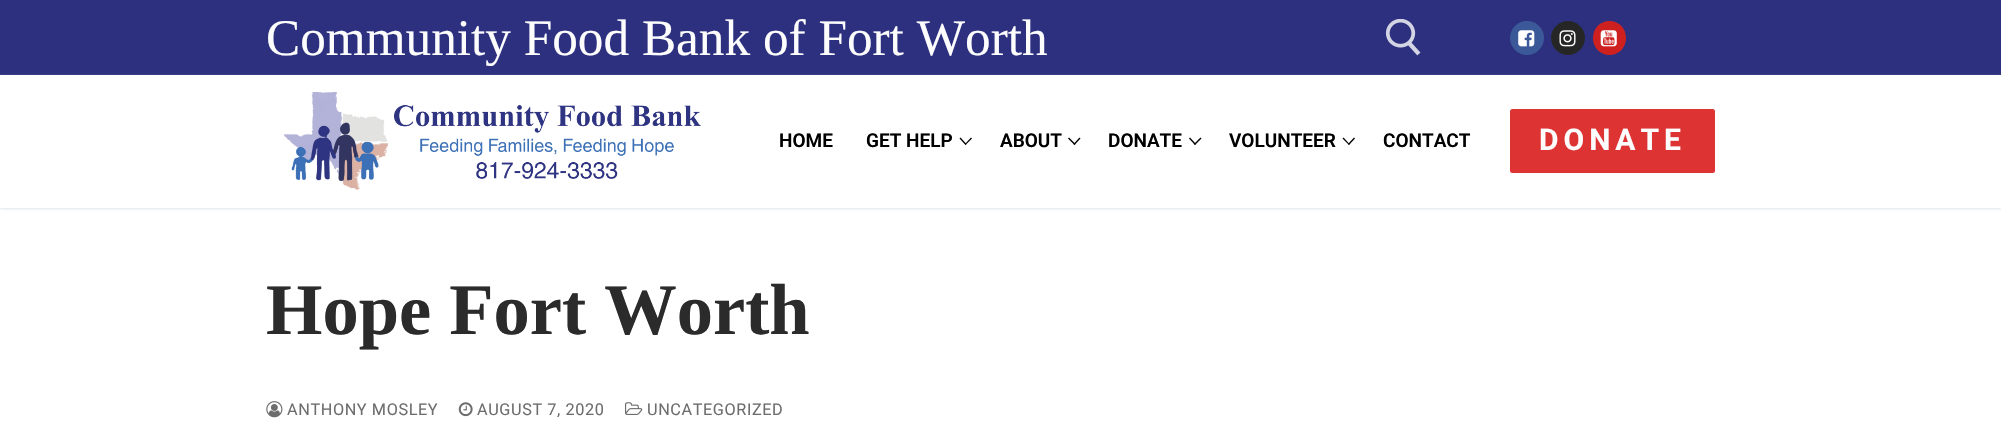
void draw(SkCanvas* canvas) {
  SkPaint paint;
  paint.setAntiAlias(true);
  auto face = [&](const char* family, int weight, float size, bool italic = false) {
    SkFontStyle style(weight, SkFontStyle::kNormal_Width,
      italic ? SkFontStyle::kItalic_Slant : SkFontStyle::kUpright_Slant);
    SkFont result(fontMgr->matchFamilyStyle(family, style), size);
    result.setSubpixel(true);
    return result;
  };
  auto writeSpaced = [&](const char* s, float x, float y, const SkFont& font, const SkPaint& ink, float letter, float word) {
    std::vector<SkGlyphID> glyphs(font.countText(s, strlen(s), SkTextEncoding::kUTF8));
    std::vector<float> xs(glyphs.size());
    font.textToGlyphs(s, strlen(s), SkTextEncoding::kUTF8, glyphs);
    font.getXPos(glyphs, xs, x);
    float extra = 0;
    for (size_t i = 0; i < glyphs.size(); i++) {
      xs[i] += extra;
      extra += letter + word * (glyphs[i] == font.unicharToGlyph(' '));
    }
    canvas->drawTextBlob(SkTextBlob::MakeFromPosHGlyphs(glyphs, xs, y, font), 0, 0, ink);
  };
  auto paste = [&](const char* path, float x, float y, float w, float h) {
    auto image = SkImages::DeferredFromEncodedData(SkData::MakeFromFileName(path));
    canvas->drawImageRect(image, SkRect::MakeXYWH(x, y, w, h), SkSamplingOptions());
  };
  auto shape = [&](const char* data, bool evenOdd = false) {
    SkPath result = *SkParsePath::FromSVGString(data);
    if (evenOdd) result.setFillType(SkPathFillType::kEvenOdd);
    return result;
  };
  canvas->clear(0xffffffff);
  paint.setColor(0xff2c307e);
  canvas->drawRect(SkRect::MakeXYWH(0, 0, 2001, 75), paint);
  paste("img/1.png", 1385, 19, 36, 37);
  paint.setColor(0xff3b5998);
  canvas->drawCircle(1527, 38, 17, paint);
  paste("img/2.png", 1518, 30, 17, 17);
  paint.setColor(0xff262626);
  canvas->drawCircle(1568, 38, 17, paint);
  paste("img/3.png", 1559, 30, 17, 17);
  paint.setColor(0xffcd201f);
  canvas->drawRoundRect(SkRect::MakeXYWH(1593, 21, 33, 34), 16.5f, 16.5f, paint);
  paste("img/4.png", 1600, 30, 17, 17);
  paint.setColor(0xffe1e5ea);
  paint.setMaskFilter(SkMaskFilter::MakeBlur(kNormal_SkBlurStyle, 1));
  canvas->drawRect(SkRect::MakeXYWH(0, 76, 2001, 133), paint);
  paint.setMaskFilter(nullptr);
  paint.setColor(0xffffffff);
  canvas->drawRect(SkRect::MakeXYWH(0, 75, 2001, 133), paint);
  paste("img/5.png", 284, 92, 417, 98);
  paint.setColor(0xff000000);
  canvas->drawPath(shape("M965.5 145L959.5 138.5L960.5 137.5L966.5 144Z"), paint);
  canvas->drawPath(shape("M965.5 145L965 144L971 137.5L972 138.5Z"), paint);
  canvas->drawPath(shape("M1074.5 145L1068 138.5L1069 137.5L1075.5 144Z"), paint);
  canvas->drawPath(shape("M1074.5 145L1073.5 144L1079.5 137.5L1080.5 138.5Z"), paint);
  canvas->drawPath(shape("M1195 145L1189 138.5L1190 137.5L1196 144Z"), paint);
  canvas->drawPath(shape("M1195 145L1194 144L1200.5 137.5L1201.5 138.5Z"), paint);
  canvas->drawPath(shape("M1349 145L1342.5 138.5L1343.5 137.5L1349.5 144Z"), paint);
  canvas->drawPath(shape("M1349 145L1348 144L1354 137.5L1355 138.5Z"), paint);
  paint.setColor(0xffdd3333);
  canvas->drawRoundRect(SkRect::MakeXYWH(1510, 109, 205, 64), 2.5f, 2.5f, paint);
  paste("img/6.png", 266, 401, 17, 17);
  paste("img/7.png", 458, 402, 15, 15);
  paste("img/8.png", 625, 402, 18, 13);
  auto f0 = face("Liberation Serif", 400, 51.25f);
  paint.setColor(0xfffdfdfe);
  canvas->drawString("Community Food Bank of Fort Worth", 266, 55, f0, paint);
  auto f1 = face("Roboto", 600, 19);
  paint.setColor(0xff000000);
  {
    const struct { const char* s; float x, y; } items[] = {
      {"HOME", 779, 147},
      {"GET HELP", 866, 147},
      {"ABOUT", 1000, 147},
      {"DONATE", 1108, 147},
      {"VOLUNTEER", 1229, 147},
      {"CONTACT", 1383, 147},
    };
    for (auto [s, x, y] : items) {
      canvas->drawString(s, x, y, f1, paint);
    }
  }
  auto f2 = face("Roboto", 700, 30);
  paint.setColor(0xfffdfdfe);
  writeSpaced("DONATE", 1539, 150, f2, paint, 5, 0);
  auto f3 = face("Liberation Serif", 700, 72.5f);
  paint.setColor(0xff2b2b2b);
  canvas->drawString("Hope Fort Worth", 266, 334, f3, paint);
  auto f4 = face("Roboto", 400, 16.25f);
  paint.setColor(0xff6d6d6d);
  {
    const struct { const char* s; float x, y; } items[] = {
      {"ANTHONY MOSLEY", 287, 415},
      {"AUGUST 7, 2020", 477, 415},
      {"UNCATEGORIZED", 647, 415},
    };
    for (auto [s, x, y] : items) {
      writeSpaced(s, x, y, f4, paint, 0.6f, 0);
    }
  }
}
